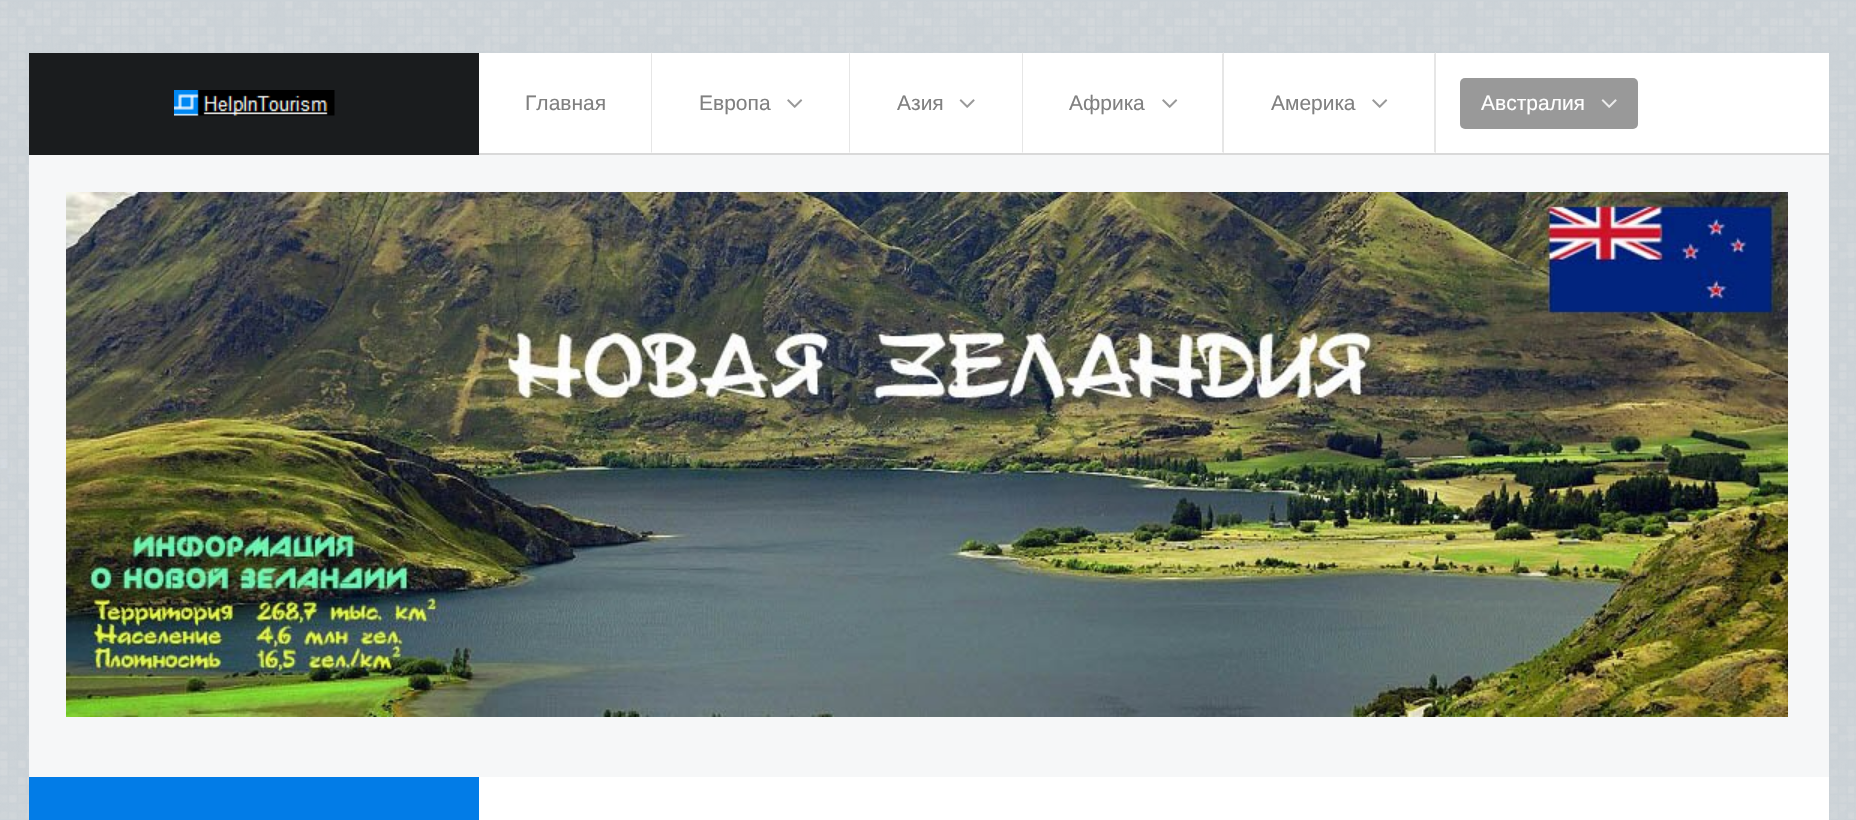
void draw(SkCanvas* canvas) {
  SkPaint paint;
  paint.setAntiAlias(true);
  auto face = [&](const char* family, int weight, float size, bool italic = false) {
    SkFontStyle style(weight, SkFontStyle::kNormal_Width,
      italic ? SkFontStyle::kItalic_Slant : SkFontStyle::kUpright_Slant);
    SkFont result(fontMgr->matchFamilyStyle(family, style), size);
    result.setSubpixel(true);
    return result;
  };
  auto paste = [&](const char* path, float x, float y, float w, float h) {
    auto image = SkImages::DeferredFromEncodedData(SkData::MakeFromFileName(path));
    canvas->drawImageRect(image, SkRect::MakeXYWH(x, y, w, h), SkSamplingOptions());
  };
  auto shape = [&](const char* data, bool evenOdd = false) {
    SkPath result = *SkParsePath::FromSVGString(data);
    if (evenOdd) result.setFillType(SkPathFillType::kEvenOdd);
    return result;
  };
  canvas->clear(0xffcbd2d7);
  paste("img/1.png", 0, 1, 1856, 819);
  paint.setColor(0xffffffff);
  canvas->drawRect(SkRect::MakeXYWH(479, 53, 1350, 100), paint);
  paint.setColor(0xff1a1c1e);
  canvas->drawRect(SkRect::MakeXYWH(29, 53, 450, 102), paint);
  paste("img/2.png", 174, 90, 161, 26);
  paint.setColor(0xffd9d9d9);
  canvas->drawRect(SkRect::MakeXYWH(479, 153, 1350, 2), paint);
  paint.setColor(0xffe6e6e6);
  canvas->drawPath(shape("M652 52V153L651 152V54Z"), paint);
  canvas->drawPath(shape("M850 52V153L849 152V54Z"), paint);
  paste("img/3.png", 787, 99, 16, 9);
  canvas->drawPath(shape("M1023 52V153L1022 152V54Z"), paint);
  paste("img/4.png", 959, 99, 16, 9);
  canvas->drawPath(shape("M1224 52V153L1222 152V54Z"), paint);
  paste("img/3.png", 1162, 99, 16, 9);
  canvas->drawPath(shape("M1436 52V153L1434 152V54Z"), paint);
  paste("img/3.png", 1372, 99, 16, 9);
  paint.setColor(0xff999999);
  canvas->drawRoundRect(SkRect::MakeXYWH(1460, 78, 178, 51), 5, 5, paint);
  paste("img/5.png", 1601, 99, 16, 9);
  paint.setColor(0xfff6f7f8);
  canvas->drawRect(SkRect::MakeXYWH(29, 155, 1800, 622), paint);
  paste("img/6.png", 66, 192, 1722, 525);
  paint.setColor(0xff027ce7);
  canvas->drawRect(SkRect::MakeXYWH(29, 777, 450, 43), paint);
  paint.setColor(0xffffffff);
  canvas->drawRect(SkRect::MakeXYWH(479, 777, 1350, 43), paint);
  auto f0 = face("Liberation Sans", 400, 21);
  paint.setColor(0xff808080);
  {
    const struct { const char* s; float x, y; } items[] = {
      {"Главная", 525, 110},
      {"Европа", 699, 110},
      {"Азия", 897, 110},
      {"Африка", 1069, 110},
      {"Америка", 1271, 110},
    };
    for (auto [s, x, y] : items) {
      canvas->drawString(s, x, y, f0, paint);
    }
  }
  paint.setColor(0xffffffff);
  canvas->drawString("Австралия", 1481, 110, f0, paint);
}
